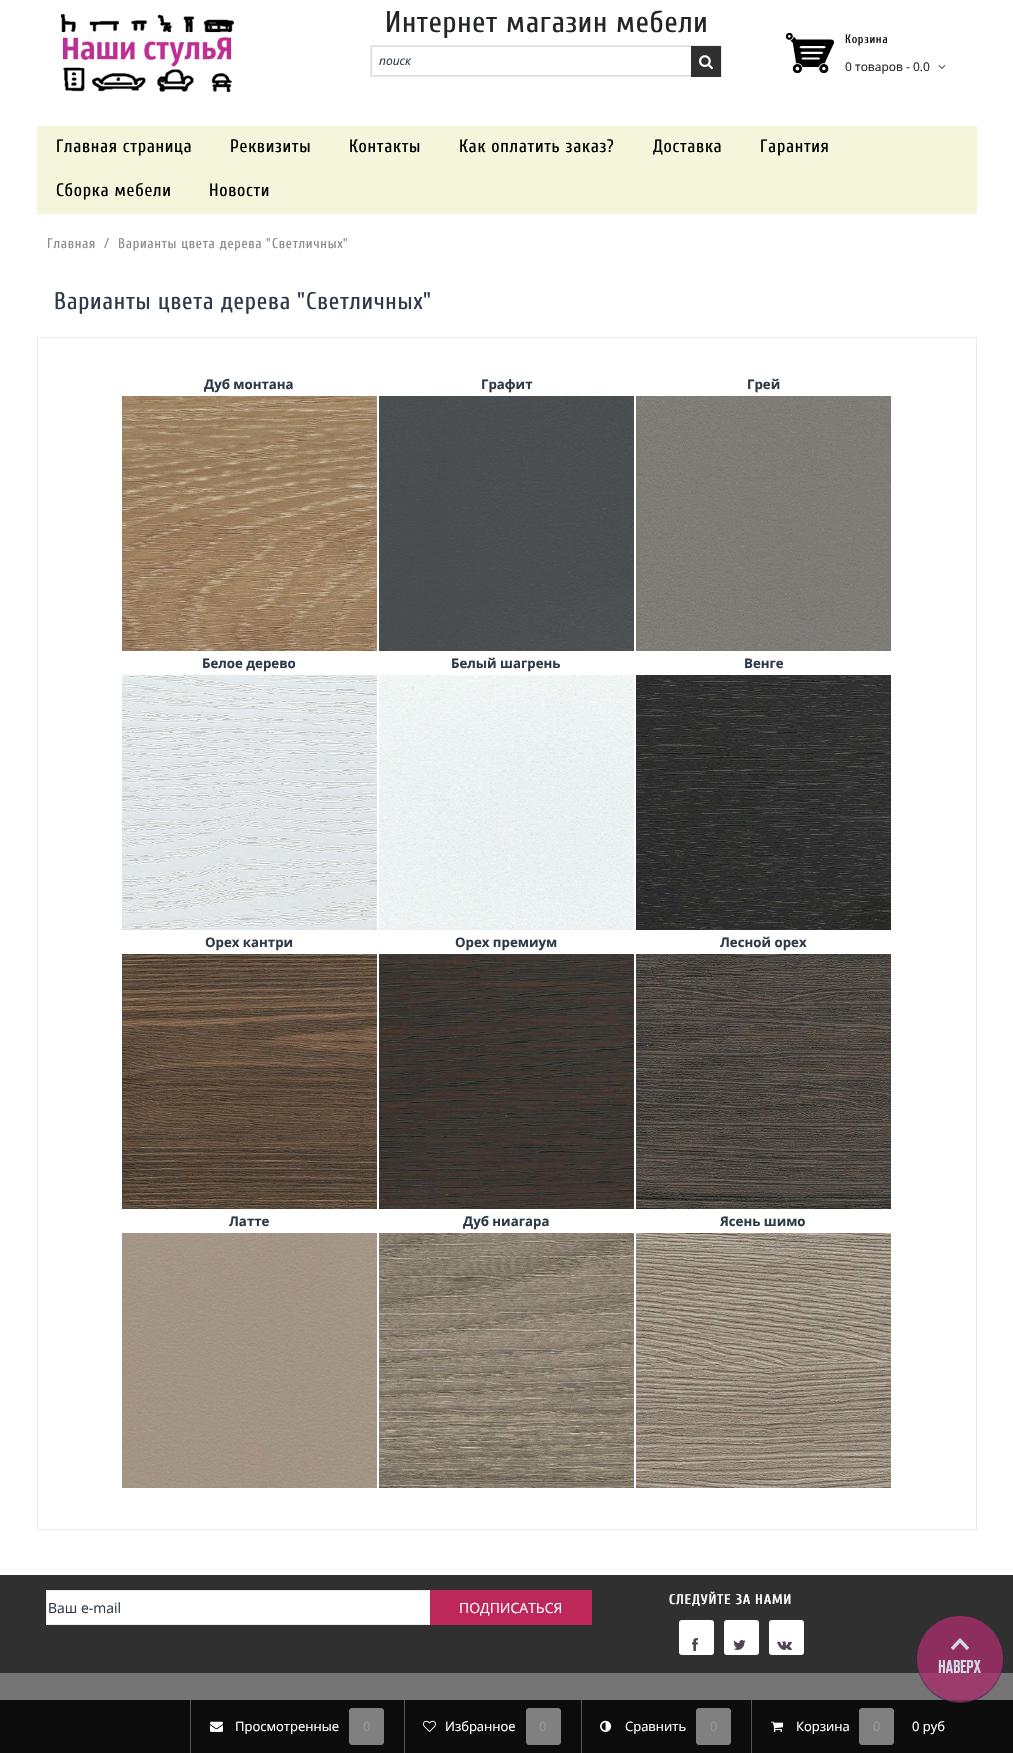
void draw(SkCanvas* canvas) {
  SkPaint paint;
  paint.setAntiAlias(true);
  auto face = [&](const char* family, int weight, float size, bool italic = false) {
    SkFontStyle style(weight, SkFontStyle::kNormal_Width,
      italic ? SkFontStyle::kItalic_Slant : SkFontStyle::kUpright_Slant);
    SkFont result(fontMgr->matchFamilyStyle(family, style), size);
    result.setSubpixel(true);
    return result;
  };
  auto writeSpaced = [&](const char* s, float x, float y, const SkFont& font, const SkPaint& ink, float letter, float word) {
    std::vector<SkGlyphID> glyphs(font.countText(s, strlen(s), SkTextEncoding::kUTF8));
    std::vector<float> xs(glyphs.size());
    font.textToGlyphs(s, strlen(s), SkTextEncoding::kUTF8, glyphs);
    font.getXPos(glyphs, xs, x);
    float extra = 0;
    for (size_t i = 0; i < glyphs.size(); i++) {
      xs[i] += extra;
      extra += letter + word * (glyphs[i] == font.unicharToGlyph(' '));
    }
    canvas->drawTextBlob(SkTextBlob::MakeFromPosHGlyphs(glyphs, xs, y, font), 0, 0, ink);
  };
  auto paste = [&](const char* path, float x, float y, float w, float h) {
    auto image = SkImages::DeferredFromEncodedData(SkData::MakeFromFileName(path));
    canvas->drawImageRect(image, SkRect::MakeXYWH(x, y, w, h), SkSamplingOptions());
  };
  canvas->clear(0xffffffff);
  paste("img/1.png", 61, 14, 174, 79);
  paint.setStroke(true);
  paint.setStrokeWidth(1);
  paint.setColor(0xffe9e9e9);
  canvas->drawRect(SkRect::MakeXYWH(370.5f, 45.5f, 351, 31), paint);
  paint.setColor(0xffdcdcdc);
  canvas->drawRect(SkRect::MakeXYWH(371.5f, 46.5f, 349, 29), paint);
  paint.setStroke(false);
  paint.setColor(0xff303030);
  canvas->drawRect(SkRect::MakeXYWH(691, 46, 30, 31), paint);
  paste("img/2.png", 699, 55, 14, 15);
  paste("img/3.png", 786, 33, 48, 40);
  paste("img/4.png", 938, 65, 8, 4);
  paint.setColor(0xfff5f5dc);
  canvas->drawRect(SkRect::MakeXYWH(37, 126, 940, 88), paint);
  paint.setStroke(true);
  paint.setColor(0xffe9e9e9);
  canvas->drawRect(SkRect::MakeXYWH(37.5f, 337.5f, 939, 1192), paint);
  paste("img/5.png", 122, 396, 255, 255);
  paste("img/6.png", 379, 396, 255, 255);
  paste("img/7.png", 636, 396, 255, 255);
  paste("img/8.png", 122, 675, 255, 255);
  paste("img/9.png", 379, 675, 255, 255);
  paste("img/10.png", 636, 675, 255, 255);
  paste("img/11.png", 122, 954, 255, 255);
  paste("img/12.png", 379, 954, 255, 255);
  paste("img/13.png", 636, 954, 255, 255);
  paste("img/14.png", 122, 1233, 255, 255);
  paste("img/15.png", 379, 1233, 255, 255);
  paste("img/16.png", 636, 1233, 255, 255);
  paint.setStroke(false);
  paint.setColor(0xff303030);
  canvas->drawRect(SkRect::MakeXYWH(0, 1575, 1013, 98), paint);
  paint.setColor(0xffffffff);
  canvas->drawRoundRect(SkRect::MakeXYWH(679, 1620, 35, 35), 3, 3, paint);
  paste("img/17.png", 692, 1638, 6, 13);
  canvas->drawRoundRect(SkRect::MakeXYWH(724, 1620, 35, 35), 3, 3, paint);
  paste("img/18.png", 733, 1640, 13, 10);
  canvas->drawRoundRect(SkRect::MakeXYWH(769, 1620, 35, 35), 3, 3, paint);
  paste("img/19.png", 777, 1641, 15, 9);
  canvas->drawRect(SkRect::MakeXYWH(47, 1591, 383, 33), paint);
  paint.setStroke(true);
  paint.setColor(0xffededed);
  canvas->drawRect(SkRect::MakeXYWH(46.5f, 1590.5f, 388, 34), paint);
  paint.setStroke(false);
  {
    const struct { float x, y, w, h; SkColor color; } items[] = {
      {430, 1590, 162, 35, 0xffbe275a},
      {0, 1673, 1013, 27, 0xff747474},
      {0, 1700, 1013, 53, 0xff0c0c0c},
    };
    for (auto [x, y, w, h, color] : items) {
      paint.setColor(color);
      canvas->drawRect(SkRect::MakeXYWH(x, y, w, h), paint);
    }
  }
  paste("img/20.png", 917, 1616, 86, 87);
  paint.setColor(0xff555555);
  canvas->drawRect(SkRect::MakeXYWH(190, 1700, 1, 53), paint);
  paste("img/21.png", 210, 1721, 13, 11);
  paint.setColor(0xff808080);
  canvas->drawRoundRect(SkRect::MakeXYWH(349.5f, 1708.5f, 34, 36), 2.5f, 2.5f, paint);
  paint.setStroke(true);
  canvas->drawRoundRect(SkRect::MakeXYWH(349.5f, 1708.5f, 34, 36), 2.5f, 2.5f, paint);
  paint.setStroke(false);
  paint.setColor(0xff555555);
  canvas->drawRect(SkRect::MakeXYWH(404, 1700, 1, 53), paint);
  paste("img/22.png", 423, 1720, 13, 12);
  paint.setColor(0xff808080);
  canvas->drawRoundRect(SkRect::MakeXYWH(526.5f, 1708.5f, 34, 36), 2.5f, 2.5f, paint);
  paint.setStroke(true);
  canvas->drawRoundRect(SkRect::MakeXYWH(526.5f, 1708.5f, 34, 36), 2.5f, 2.5f, paint);
  paint.setStroke(false);
  paint.setColor(0x4dffffff);
  canvas->drawRect(SkRect::MakeXYWH(581, 1700, 1, 53), paint);
  paste("img/23.png", 600, 1720, 12, 12);
  paint.setColor(0xff808080);
  canvas->drawRoundRect(SkRect::MakeXYWH(696.5f, 1708.5f, 34, 36), 2.5f, 2.5f, paint);
  paint.setStroke(true);
  canvas->drawRoundRect(SkRect::MakeXYWH(696.5f, 1708.5f, 34, 36), 2.5f, 2.5f, paint);
  paint.setStroke(false);
  paint.setColor(0xff555555);
  canvas->drawRect(SkRect::MakeXYWH(751, 1700, 1, 53), paint);
  paste("img/24.png", 771, 1721, 13, 11);
  paint.setColor(0xff808080);
  canvas->drawRoundRect(SkRect::MakeXYWH(859.5f, 1708.5f, 34, 36), 2.5f, 2.5f, paint);
  paint.setStroke(true);
  canvas->drawRoundRect(SkRect::MakeXYWH(859.5f, 1708.5f, 34, 36), 2.5f, 2.5f, paint);
  auto f0 = face("Cuprum", 400, 30);
  paint.setStroke(false);
  paint.setColor(0xff232526);
  writeSpaced("Интернет магазин мебели", 385, 32, f0, paint, 0.7f, 0);
  auto f1 = face("Open Sans", 400, 12, true);
  paint.setColor(0xff2e3a47);
  canvas->drawString("поиск", 379, 65, f1, paint);
  auto f2 = face("Cuprum", 400, 12);
  paint.setColor(0xff000000);
  writeSpaced("Корзина", 845, 43, f2, paint, 0.7f, 0);
  auto f3 = face("Open Sans", 400, 12);
  paint.setColor(0xff232526);
  canvas->drawString("0 товаров - 0.0", 845, 71, f3, paint);
  auto f4 = face("Cuprum", 400, 18);
  paint.setColor(0xff000000);
  {
    const struct { const char* s; float x, y; } items[] = {
      {"Главная страница", 56, 152},
      {"Реквизиты", 230, 152},
      {"Контакты", 349, 152},
      {"Как оплатить заказ", 459, 152},
    };
    for (auto [s, x, y] : items) {
      writeSpaced(s, x, y, f4, paint, 0.7f, 0);
    }
  }
  auto f5 = face("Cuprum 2", 400, 18);
  writeSpaced("?", 607, 152, f5, paint, 0.7f, 0);
  {
    const struct { const char* s; float x, y; } items[] = {
      {"Доставка", 653, 152},
      {"Гарантия", 760, 152},
      {"Сборка мебели", 56, 196},
      {"Новости", 209, 196},
    };
    for (auto [s, x, y] : items) {
      writeSpaced(s, x, y, f4, paint, 0.7f, 0);
    }
  }
  auto f6 = face("Cuprum", 400, 14);
  paint.setColor(0xff8c8c8c);
  writeSpaced("Главная", 47, 248, f6, paint, 0.7f, 0);
  auto f7 = face("Open Sans", 400, 14);
  canvas->drawString("/", 104, 248, f7, paint);
  writeSpaced("Варианты цвета дерева", 118, 248, f6, paint, 0.7f, 0);
  auto f8 = face("Cuprum 2", 400, 14);
  writeSpaced("\"", 266, 248, f8, paint, 0.7f, 0);
  writeSpaced("Светличных", 272, 248, f6, paint, 0.7f, 0);
  writeSpaced("\"", 343, 248, f8, paint, 0.7f, 0);
  auto f9 = face("Cuprum", 400, 24);
  paint.setColor(0xff2e3a47);
  writeSpaced("Варианты цвета дерева", 54, 309, f9, paint, 0.7f, 0);
  auto f10 = face("Cuprum 2", 400, 24);
  writeSpaced("\"", 297, 309, f10, paint, 0.7f, 0);
  writeSpaced("Светличных", 306, 309, f9, paint, 0.7f, 0);
  writeSpaced("\"", 423, 309, f10, paint, 0.7f, 0);
  auto f11 = face("Open Sans", 700, 13.25f);
  {
    const struct { const char* s; float x, y; } items[] = {
      {"Дуб монтана", 204, 389},
      {"Графит", 481, 389},
      {"Грей", 747, 389},
      {"Белое дерево", 202, 668},
      {"Белый шагрень", 451, 668},
      {"Венге", 744, 668},
      {"Орех кантри", 205, 947},
      {"Орех премиум", 455, 947},
      {"Лесной орех", 720, 947},
      {"Латте", 229, 1226},
      {"Дуб ниагара", 463, 1226},
      {"Ясень шимо", 720, 1226},
    };
    for (auto [s, x, y] : items) {
      canvas->drawString(s, x, y, f11, paint);
    }
  }
  auto f12 = face("Cuprum", 700, 14);
  paint.setColor(0xffffffff);
  writeSpaced("СЛЕДУЙТЕ ЗА НАМИ", 669, 1604, f12, paint, 0.7f, 0);
  paint.setColor(0xff2e3a47);
  canvas->drawString("Ваш e-mail", 48, 1613, f7, paint);
  paint.setColor(0xffffffff);
  canvas->drawString("ПОДПИСАТЬСЯ", 459, 1613, f7, paint);
  auto f13 = face("Open Sans", 400, 13);
  canvas->drawString("Просмотренные", 235, 1731, f13, paint);
  paint.setColor(0xff999999);
  canvas->drawString("0", 363, 1731, f13, paint);
  paint.setColor(0xffffffff);
  canvas->drawString("Избранное", 445, 1731, f13, paint);
  paint.setColor(0xff999999);
  canvas->drawString("0", 539, 1731, f13, paint);
  paint.setColor(0xffffffff);
  canvas->drawString("Сравнить", 625, 1731, f13, paint);
  paint.setColor(0xff999999);
  canvas->drawString("0", 710, 1731, f13, paint);
  paint.setColor(0xffffffff);
  canvas->drawString("Корзина", 796, 1731, f13, paint);
  paint.setColor(0xff999999);
  canvas->drawString("0", 873, 1731, f13, paint);
  paint.setColor(0xffffffff);
  canvas->drawString("0 руб", 912, 1731, f13, paint);
}
